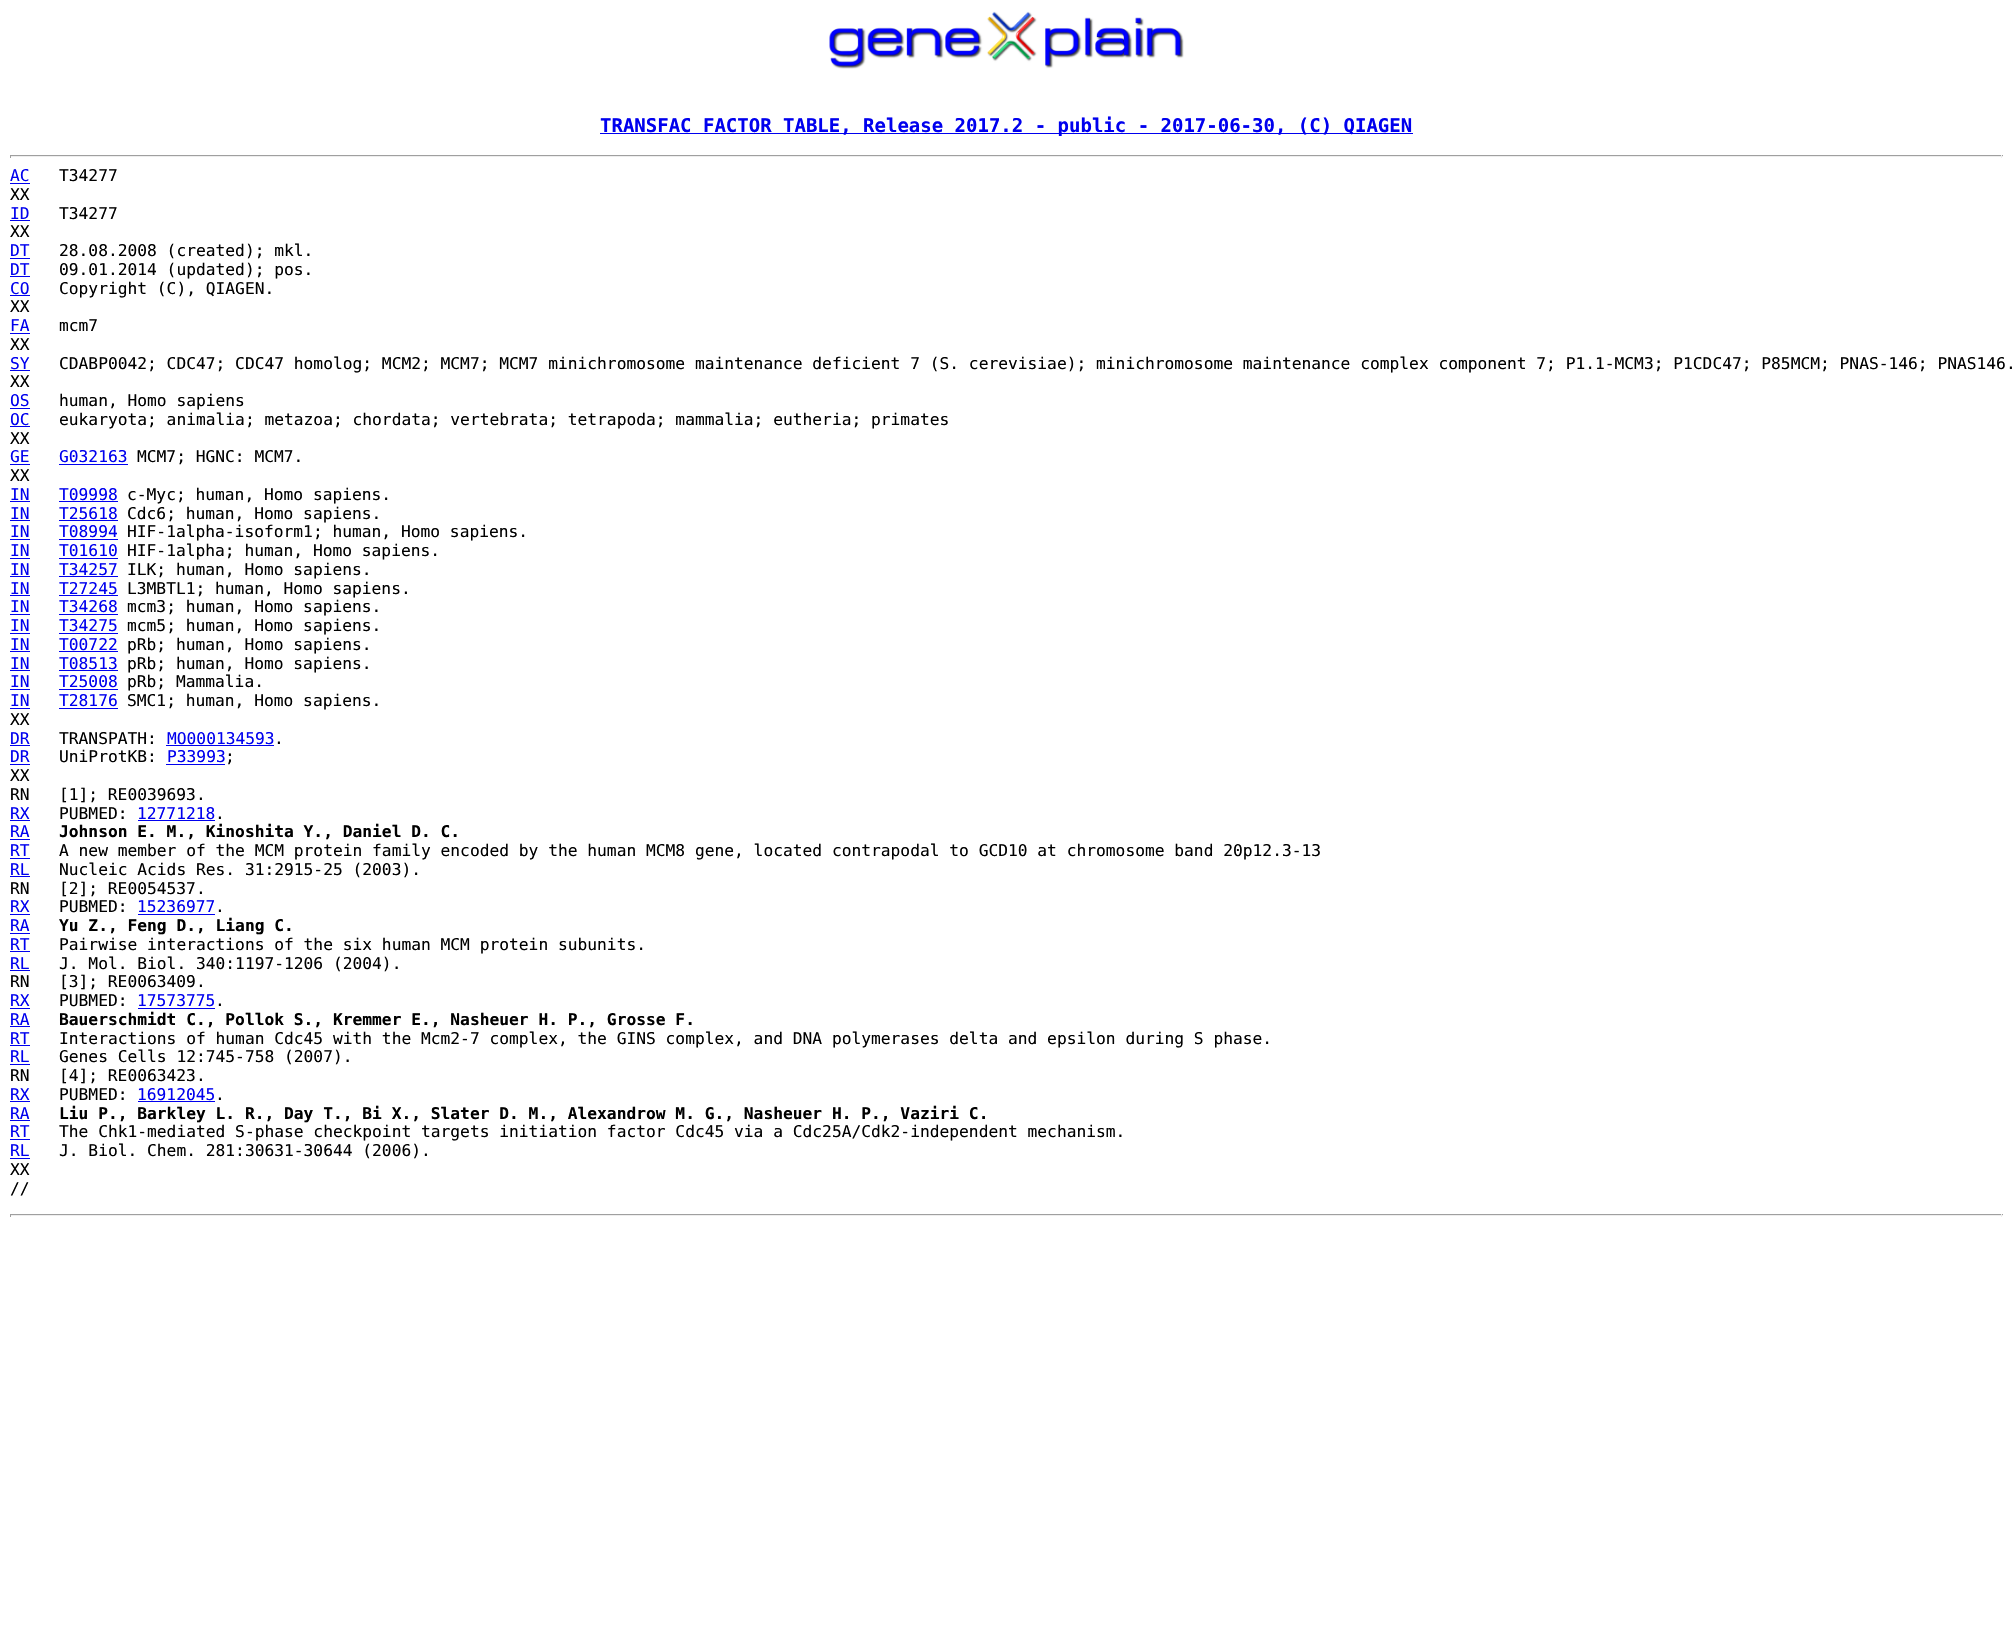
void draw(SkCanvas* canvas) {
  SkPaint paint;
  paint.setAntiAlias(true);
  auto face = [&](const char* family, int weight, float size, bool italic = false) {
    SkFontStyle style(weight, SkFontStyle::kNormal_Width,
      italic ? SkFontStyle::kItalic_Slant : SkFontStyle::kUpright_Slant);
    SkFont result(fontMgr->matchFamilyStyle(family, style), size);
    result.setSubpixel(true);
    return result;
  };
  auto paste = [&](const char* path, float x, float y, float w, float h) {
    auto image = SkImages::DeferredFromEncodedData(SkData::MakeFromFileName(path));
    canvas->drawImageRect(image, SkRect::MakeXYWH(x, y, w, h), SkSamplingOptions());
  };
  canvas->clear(0xffffffff);
  paste("img/1.png", 829, 11, 355, 58);
  {
    const struct { float x, y, w, h; SkColor color; } items[] = {
      {600, 133, 813, 1, 0xff0000ee},
      {10, 155, 1993, 1, 0xff9f9f9f},
      {2001, 155, 1, 3, 0xffeeeeee},
      {10, 156, 1993, 1, 0xffeeeeee},
      {10, 155, 1, 3, 0xff9f9f9f},
      {10, 183, 20, 1, 0xff0000ee},
      {10, 220, 20, 1, 0xff0000ee},
      {10, 258, 20, 1, 0xff0000ee},
      {10, 276, 20, 1, 0xff0000ee},
      {10, 295, 20, 1, 0xff0000ee},
      {10, 333, 20, 1, 0xff0000ee},
      {10, 370, 20, 1, 0xff0000ee},
      {10, 408, 20, 1, 0xff0000ee},
      {10, 426, 20, 1, 0xff0000ee},
      {10, 464, 20, 1, 0xff0000ee},
      {59, 464, 69, 1, 0xff0000ee},
      {10, 501, 20, 1, 0xff0000ee},
      {59, 501, 59, 1, 0xff0000ee},
      {10, 520, 20, 1, 0xff0000ee},
      {59, 520, 59, 1, 0xff0000ee},
      {10, 539, 20, 1, 0xff0000ee},
      {59, 539, 59, 1, 0xff0000ee},
      {10, 558, 20, 1, 0xff0000ee},
      {59, 558, 59, 1, 0xff0000ee},
      {10, 576, 20, 1, 0xff0000ee},
      {59, 576, 59, 1, 0xff0000ee},
      {10, 595, 20, 1, 0xff0000ee},
      {59, 595, 59, 1, 0xff0000ee},
      {10, 614, 20, 1, 0xff0000ee},
      {59, 614, 59, 1, 0xff0000ee},
      {10, 633, 20, 1, 0xff0000ee},
      {59, 633, 59, 1, 0xff0000ee},
      {10, 651, 20, 1, 0xff0000ee},
      {59, 651, 59, 1, 0xff0000ee},
      {10, 670, 20, 1, 0xff0000ee},
      {59, 670, 59, 1, 0xff0000ee},
      {10, 689, 20, 1, 0xff0000ee},
      {59, 689, 59, 1, 0xff0000ee},
      {10, 708, 20, 1, 0xff0000ee},
      {59, 708, 59, 1, 0xff0000ee},
      {10, 745, 20, 1, 0xff0000ee},
      {166, 745, 108, 1, 0xff0000ee},
      {10, 764, 20, 1, 0xff0000ee},
      {166, 764, 59, 1, 0xff0000ee},
      {10, 820, 20, 1, 0xff0000ee},
      {138, 820, 77, 1, 0xff0000ee},
      {10, 839, 20, 1, 0xff0000ee},
      {10, 858, 20, 1, 0xff0000ee},
      {10, 876, 20, 1, 0xff0000ee},
      {10, 914, 20, 1, 0xff0000ee},
      {138, 914, 77, 1, 0xff0000ee},
      {10, 933, 20, 1, 0xff0000ee},
      {10, 951, 20, 1, 0xff0000ee},
      {10, 970, 20, 1, 0xff0000ee},
      {10, 1008, 20, 1, 0xff0000ee},
      {138, 1008, 77, 1, 0xff0000ee},
      {10, 1026, 20, 1, 0xff0000ee},
      {10, 1045, 20, 1, 0xff0000ee},
      {10, 1064, 20, 1, 0xff0000ee},
      {10, 1101, 20, 1, 0xff0000ee},
      {138, 1101, 77, 1, 0xff0000ee},
      {10, 1120, 20, 1, 0xff0000ee},
      {10, 1139, 20, 1, 0xff0000ee},
      {10, 1158, 20, 1, 0xff0000ee},
      {10, 1214, 1993, 1, 0xff9f9f9f},
      {2001, 1214, 1, 3, 0xffeeeeee},
      {10, 1215, 1993, 1, 0xffeeeeee},
      {10, 1214, 1, 3, 0xff9f9f9f},
    };
    for (auto [x, y, w, h, color] : items) {
      paint.setColor(color);
      canvas->drawRect(SkRect::MakeXYWH(x, y, w, h), paint);
    }
  }
  auto f0 = face("DejaVu Sans Mono", 700, 19);
  paint.setColor(0xff0000ee);
  canvas->drawString("TRANSFAC FACTOR TABLE, Release 2017.2 - public - 2017-06-30, (C) QIAGEN", 600, 132, f0, paint);
  auto f1 = face("DejaVu Sans Mono", 400, 16.25f);
  canvas->drawString("AC", 10, 181, f1, paint);
  paint.setColor(0xff000000);
  canvas->drawString("T34277", 59, 181, f1, paint);
  canvas->drawString("XX", 10, 200, f1, paint);
  paint.setColor(0xff0000ee);
  canvas->drawString("ID", 10, 219, f1, paint);
  paint.setColor(0xff000000);
  canvas->drawString("T34277", 59, 219, f1, paint);
  canvas->drawString("XX", 10, 237, f1, paint);
  paint.setColor(0xff0000ee);
  canvas->drawString("DT", 10, 256, f1, paint);
  paint.setColor(0xff000000);
  canvas->drawString("28.08.2008 (created); mkl.", 59, 256, f1, paint);
  paint.setColor(0xff0000ee);
  canvas->drawString("DT", 10, 275, f1, paint);
  paint.setColor(0xff000000);
  canvas->drawString("09.01.2014 (updated); pos.", 59, 275, f1, paint);
  paint.setColor(0xff0000ee);
  canvas->drawString("CO", 10, 294, f1, paint);
  paint.setColor(0xff000000);
  canvas->drawString("Copyright (C), QIAGEN.", 59, 294, f1, paint);
  canvas->drawString("XX", 10, 312, f1, paint);
  paint.setColor(0xff0000ee);
  canvas->drawString("FA", 10, 331, f1, paint);
  paint.setColor(0xff000000);
  canvas->drawString("mcm7", 59, 331, f1, paint);
  canvas->drawString("XX", 10, 350, f1, paint);
  paint.setColor(0xff0000ee);
  canvas->drawString("SY", 10, 369, f1, paint);
  paint.setColor(0xff000000);
  canvas->drawString("CDABP0042; CDC47; CDC47 homolog; MCM2; MCM7; MCM7 minichromosome maintenance deficient 7 (S. cerevisiae); minichromosome maintenance complex component 7; P1.1-MCM3; P1CDC47; P85MCM; PNAS-146; PNAS146.", 59, 369, f1, paint);
  canvas->drawString("XX", 10, 387, f1, paint);
  paint.setColor(0xff0000ee);
  canvas->drawString("OS", 10, 406, f1, paint);
  paint.setColor(0xff000000);
  canvas->drawString("human, Homo sapiens", 59, 406, f1, paint);
  paint.setColor(0xff0000ee);
  canvas->drawString("OC", 10, 425, f1, paint);
  paint.setColor(0xff000000);
  canvas->drawString("eukaryota; animalia; metazoa; chordata; vertebrata; tetrapoda; mammalia; eutheria; primates", 59, 425, f1, paint);
  canvas->drawString("XX", 10, 444, f1, paint);
  paint.setColor(0xff0000ee);
  canvas->drawString("GE", 10, 462, f1, paint);
  canvas->drawString("G032163", 59, 462, f1, paint);
  paint.setColor(0xff000000);
  canvas->drawString("MCM7; HGNC: MCM7.", 137, 462, f1, paint);
  canvas->drawString("XX", 10, 481, f1, paint);
  paint.setColor(0xff0000ee);
  canvas->drawString("IN", 10, 500, f1, paint);
  canvas->drawString("T09998", 59, 500, f1, paint);
  paint.setColor(0xff000000);
  canvas->drawString("c-Myc; human, Homo sapiens.", 127, 500, f1, paint);
  paint.setColor(0xff0000ee);
  canvas->drawString("IN", 10, 519, f1, paint);
  canvas->drawString("T25618", 59, 519, f1, paint);
  paint.setColor(0xff000000);
  canvas->drawString("Cdc6; human, Homo sapiens.", 127, 519, f1, paint);
  paint.setColor(0xff0000ee);
  canvas->drawString("IN", 10, 537, f1, paint);
  canvas->drawString("T08994", 59, 537, f1, paint);
  paint.setColor(0xff000000);
  canvas->drawString("HIF-1alpha-isoform1; human, Homo sapiens.", 127, 537, f1, paint);
  paint.setColor(0xff0000ee);
  canvas->drawString("IN", 10, 556, f1, paint);
  canvas->drawString("T01610", 59, 556, f1, paint);
  paint.setColor(0xff000000);
  canvas->drawString("HIF-1alpha; human, Homo sapiens.", 127, 556, f1, paint);
  paint.setColor(0xff0000ee);
  canvas->drawString("IN", 10, 575, f1, paint);
  canvas->drawString("T34257", 59, 575, f1, paint);
  paint.setColor(0xff000000);
  canvas->drawString("ILK; human, Homo sapiens.", 127, 575, f1, paint);
  paint.setColor(0xff0000ee);
  canvas->drawString("IN", 10, 594, f1, paint);
  canvas->drawString("T27245", 59, 594, f1, paint);
  paint.setColor(0xff000000);
  canvas->drawString("L3MBTL1; human, Homo sapiens.", 127, 594, f1, paint);
  paint.setColor(0xff0000ee);
  canvas->drawString("IN", 10, 612, f1, paint);
  canvas->drawString("T34268", 59, 612, f1, paint);
  paint.setColor(0xff000000);
  canvas->drawString("mcm3; human, Homo sapiens.", 127, 612, f1, paint);
  paint.setColor(0xff0000ee);
  canvas->drawString("IN", 10, 631, f1, paint);
  canvas->drawString("T34275", 59, 631, f1, paint);
  paint.setColor(0xff000000);
  canvas->drawString("mcm5; human, Homo sapiens.", 127, 631, f1, paint);
  paint.setColor(0xff0000ee);
  canvas->drawString("IN", 10, 650, f1, paint);
  canvas->drawString("T00722", 59, 650, f1, paint);
  paint.setColor(0xff000000);
  canvas->drawString("pRb; human, Homo sapiens.", 127, 650, f1, paint);
  paint.setColor(0xff0000ee);
  canvas->drawString("IN", 10, 669, f1, paint);
  canvas->drawString("T08513", 59, 669, f1, paint);
  paint.setColor(0xff000000);
  canvas->drawString("pRb; human, Homo sapiens.", 127, 669, f1, paint);
  paint.setColor(0xff0000ee);
  canvas->drawString("IN", 10, 687, f1, paint);
  canvas->drawString("T25008", 59, 687, f1, paint);
  paint.setColor(0xff000000);
  canvas->drawString("pRb; Mammalia.", 127, 687, f1, paint);
  paint.setColor(0xff0000ee);
  canvas->drawString("IN", 10, 706, f1, paint);
  canvas->drawString("T28176", 59, 706, f1, paint);
  paint.setColor(0xff000000);
  canvas->drawString("SMC1; human, Homo sapiens.", 127, 706, f1, paint);
  canvas->drawString("XX", 10, 725, f1, paint);
  paint.setColor(0xff0000ee);
  canvas->drawString("DR", 10, 744, f1, paint);
  paint.setColor(0xff000000);
  canvas->drawString("TRANSPATH:", 59, 744, f1, paint);
  paint.setColor(0xff0000ee);
  canvas->drawString("MO000134593", 167, 744, f1, paint);
  paint.setColor(0xff000000);
  canvas->drawString(".", 274, 744, f1, paint);
  paint.setColor(0xff0000ee);
  canvas->drawString("DR", 10, 762, f1, paint);
  paint.setColor(0xff000000);
  canvas->drawString("UniProtKB:", 59, 762, f1, paint);
  paint.setColor(0xff0000ee);
  canvas->drawString("P33993", 167, 762, f1, paint);
  paint.setColor(0xff000000);
  {
    const struct { const char* s; float x, y; } items[] = {
      {";", 225, 762},
      {"XX", 10, 781},
      {"RN   [1]; RE0039693.", 10, 800},
    };
    for (auto [s, x, y] : items) {
      canvas->drawString(s, x, y, f1, paint);
    }
  }
  paint.setColor(0xff0000ee);
  canvas->drawString("RX", 10, 819, f1, paint);
  paint.setColor(0xff000000);
  canvas->drawString("PUBMED:", 59, 819, f1, paint);
  paint.setColor(0xff0000ee);
  canvas->drawString("12771218", 137, 819, f1, paint);
  paint.setColor(0xff000000);
  canvas->drawString(".", 215, 819, f1, paint);
  paint.setColor(0xff0000ee);
  canvas->drawString("RA", 10, 837, f1, paint);
  auto f2 = face("DejaVu Sans Mono", 700, 16.25f);
  paint.setColor(0xff000000);
  canvas->drawString("Johnson E. M., Kinoshita Y., Daniel D. C.", 59, 837, f2, paint);
  paint.setColor(0xff0000ee);
  canvas->drawString("RT", 10, 856, f1, paint);
  paint.setColor(0xff000000);
  canvas->drawString("A new member of the MCM protein family encoded by the human MCM8 gene, located contrapodal to GCD10 at chromosome band 20p12.3-13", 59, 856, f1, paint);
  paint.setColor(0xff0000ee);
  canvas->drawString("RL", 10, 875, f1, paint);
  paint.setColor(0xff000000);
  canvas->drawString("Nucleic Acids Res. 31:2915-25 (2003).", 59, 875, f1, paint);
  canvas->drawString("RN   [2]; RE0054537.", 10, 894, f1, paint);
  paint.setColor(0xff0000ee);
  canvas->drawString("RX", 10, 912, f1, paint);
  paint.setColor(0xff000000);
  canvas->drawString("PUBMED:", 59, 912, f1, paint);
  paint.setColor(0xff0000ee);
  canvas->drawString("15236977", 137, 912, f1, paint);
  paint.setColor(0xff000000);
  canvas->drawString(".", 215, 912, f1, paint);
  paint.setColor(0xff0000ee);
  canvas->drawString("RA", 10, 931, f1, paint);
  paint.setColor(0xff000000);
  canvas->drawString("Yu Z., Feng D., Liang C.", 59, 931, f2, paint);
  paint.setColor(0xff0000ee);
  canvas->drawString("RT", 10, 950, f1, paint);
  paint.setColor(0xff000000);
  canvas->drawString("Pairwise interactions of the six human MCM protein subunits.", 59, 950, f1, paint);
  paint.setColor(0xff0000ee);
  canvas->drawString("RL", 10, 969, f1, paint);
  paint.setColor(0xff000000);
  canvas->drawString("J. Mol. Biol. 340:1197-1206 (2004).", 59, 969, f1, paint);
  canvas->drawString("RN   [3]; RE0063409.", 10, 987, f1, paint);
  paint.setColor(0xff0000ee);
  canvas->drawString("RX", 10, 1006, f1, paint);
  paint.setColor(0xff000000);
  canvas->drawString("PUBMED:", 59, 1006, f1, paint);
  paint.setColor(0xff0000ee);
  canvas->drawString("17573775", 137, 1006, f1, paint);
  paint.setColor(0xff000000);
  canvas->drawString(".", 215, 1006, f1, paint);
  paint.setColor(0xff0000ee);
  canvas->drawString("RA", 10, 1025, f1, paint);
  paint.setColor(0xff000000);
  canvas->drawString("Bauerschmidt C., Pollok S., Kremmer E., Nasheuer H. P., Grosse F.", 59, 1025, f2, paint);
  paint.setColor(0xff0000ee);
  canvas->drawString("RT", 10, 1044, f1, paint);
  paint.setColor(0xff000000);
  canvas->drawString("Interactions of human Cdc45 with the Mcm2-7 complex, the GINS complex, and DNA polymerases delta and epsilon during S phase.", 59, 1044, f1, paint);
  paint.setColor(0xff0000ee);
  canvas->drawString("RL", 10, 1062, f1, paint);
  paint.setColor(0xff000000);
  canvas->drawString("Genes Cells 12:745-758 (2007).", 59, 1062, f1, paint);
  canvas->drawString("RN   [4]; RE0063423.", 10, 1081, f1, paint);
  paint.setColor(0xff0000ee);
  canvas->drawString("RX", 10, 1100, f1, paint);
  paint.setColor(0xff000000);
  canvas->drawString("PUBMED:", 59, 1100, f1, paint);
  paint.setColor(0xff0000ee);
  canvas->drawString("16912045", 137, 1100, f1, paint);
  paint.setColor(0xff000000);
  canvas->drawString(".", 215, 1100, f1, paint);
  paint.setColor(0xff0000ee);
  canvas->drawString("RA", 10, 1119, f1, paint);
  paint.setColor(0xff000000);
  canvas->drawString("Liu P., Barkley L. R., Day T., Bi X., Slater D. M., Alexandrow M. G., Nasheuer H. P., Vaziri C.", 59, 1119, f2, paint);
  paint.setColor(0xff0000ee);
  canvas->drawString("RT", 10, 1137, f1, paint);
  paint.setColor(0xff000000);
  canvas->drawString("The Chk1-mediated S-phase checkpoint targets initiation factor Cdc45 via a Cdc25A/Cdk2-independent mechanism.", 59, 1137, f1, paint);
  paint.setColor(0xff0000ee);
  canvas->drawString("RL", 10, 1156, f1, paint);
  paint.setColor(0xff000000);
  {
    const struct { const char* s; float x, y; } items[] = {
      {"J. Biol. Chem. 281:30631-30644 (2006).", 59, 1156},
      {"XX", 10, 1175},
      {"//", 10, 1194},
    };
    for (auto [s, x, y] : items) {
      canvas->drawString(s, x, y, f1, paint);
    }
  }
}
